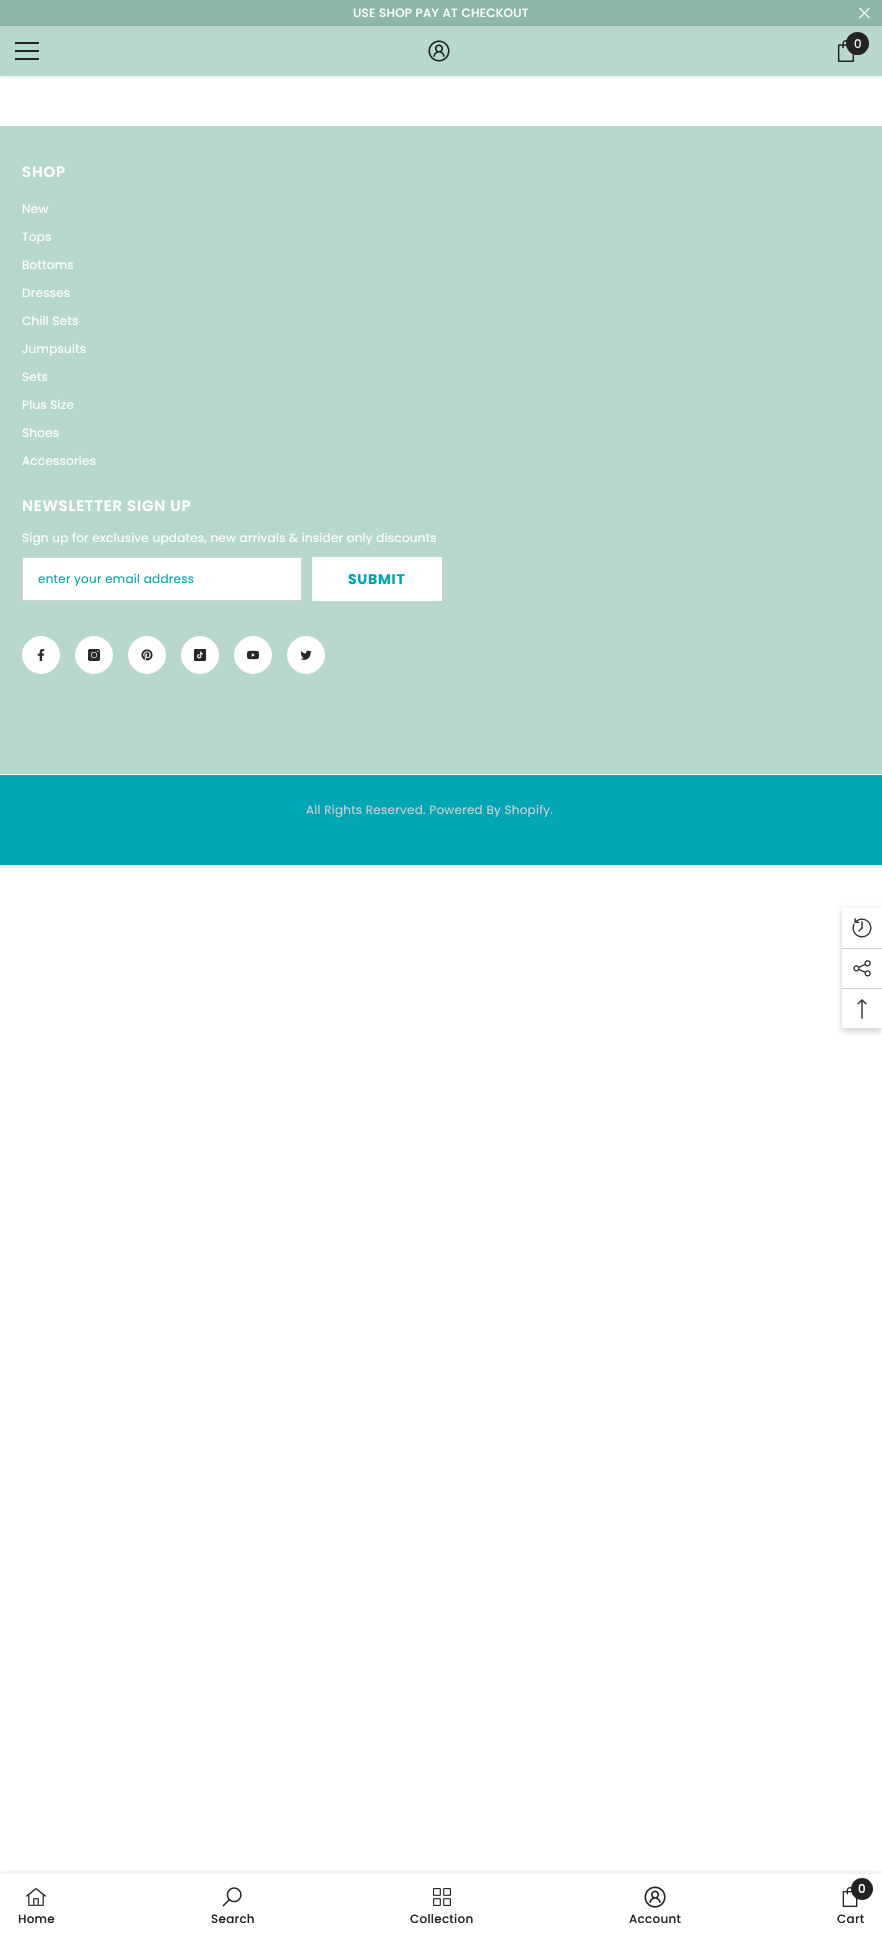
void draw(SkCanvas* canvas) {
  SkPaint paint;
  paint.setAntiAlias(true);
  auto face = [&](const char* family, int weight, float size, bool italic = false) {
    SkFontStyle style(weight, SkFontStyle::kNormal_Width,
      italic ? SkFontStyle::kItalic_Slant : SkFontStyle::kUpright_Slant);
    SkFont result(fontMgr->matchFamilyStyle(family, style), size);
    result.setSubpixel(true);
    return result;
  };
  auto writeSpaced = [&](const char* s, float x, float y, const SkFont& font, const SkPaint& ink, float letter, float word) {
    std::vector<SkGlyphID> glyphs(font.countText(s, strlen(s), SkTextEncoding::kUTF8));
    std::vector<float> xs(glyphs.size());
    font.textToGlyphs(s, strlen(s), SkTextEncoding::kUTF8, glyphs);
    font.getXPos(glyphs, xs, x);
    float extra = 0;
    for (size_t i = 0; i < glyphs.size(); i++) {
      xs[i] += extra;
      extra += letter + word * (glyphs[i] == font.unicharToGlyph(' '));
    }
    canvas->drawTextBlob(SkTextBlob::MakeFromPosHGlyphs(glyphs, xs, y, font), 0, 0, ink);
  };
  auto paste = [&](const char* path, float x, float y, float w, float h) {
    auto image = SkImages::DeferredFromEncodedData(SkData::MakeFromFileName(path));
    canvas->drawImageRect(image, SkRect::MakeXYWH(x, y, w, h), SkSamplingOptions());
  };
  auto shape = [&](const char* data, bool evenOdd = false) {
    SkPath result = *SkParsePath::FromSVGString(data);
    if (evenOdd) result.setFillType(SkPathFillType::kEvenOdd);
    return result;
  };
  canvas->clear(0xffffffff);
  paint.setColor(0xff8db7a6);
  canvas->drawRect(SkRect::MakeXYWH(0, 0, 882, 26), paint);
  paste("img/1.png", 859, 7, 11, 12);
  paint.setColor(0x1a000000);
  paint.setMaskFilter(SkMaskFilter::MakeBlur(kNormal_SkBlurStyle, 1.5f));
  canvas->drawRect(SkRect::MakeXYWH(0, 27, 882, 50), paint);
  paint.setMaskFilter(nullptr);
  {
    const struct { float x, y, w, h; SkColor color; } items[] = {
      {0, 26, 882, 50, 0xffb8d8cb},
      {15, 50, 24, 2, 0xff232323},
      {15, 42, 24, 2, 0xff232323},
      {15, 58, 24, 2, 0xff232323},
    };
    for (auto [x, y, w, h, color] : items) {
      paint.setColor(color);
      canvas->drawRect(SkRect::MakeXYWH(x, y, w, h), paint);
    }
  }
  paste("img/2.png", 428, 40, 22, 22);
  paste("img/3.png", 837, 40, 18, 22);
  canvas->drawCircle(857.5f, 43.5f, 11.5f, paint);
  paint.setColor(0xffb8d8cb);
  canvas->drawRect(SkRect::MakeXYWH(0, 126, 882, 648), paint);
  paint.setColor(0xffffffff);
  canvas->drawRect(SkRect::MakeXYWH(22.5f, 557.5f, 279, 43), paint);
  paint.setStroke(true);
  paint.setStrokeWidth(1);
  paint.setColor(0xffd3d3d3);
  canvas->drawRect(SkRect::MakeXYWH(22.5f, 557.5f, 279, 43), paint);
  paint.setStroke(false);
  paint.setColor(0xffffffff);
  canvas->drawRect(SkRect::MakeXYWH(312, 557, 130, 44), paint);
  canvas->drawCircle(41, 655, 18.5f, paint);
  paint.setStroke(true);
  canvas->drawCircle(41, 655, 18.5f, paint);
  paste("img/4.png", 37, 649, 8, 12);
  paint.setStroke(false);
  canvas->drawCircle(94, 655, 18.5f, paint);
  paint.setStroke(true);
  canvas->drawCircle(94, 655, 18.5f, paint);
  paste("img/5.png", 88, 649, 12, 12);
  paint.setStroke(false);
  canvas->drawCircle(147, 655, 18.5f, paint);
  paint.setStroke(true);
  canvas->drawCircle(147, 655, 18.5f, paint);
  paste("img/6.png", 141, 649, 12, 12);
  paint.setStroke(false);
  canvas->drawCircle(200, 655, 18.5f, paint);
  paint.setStroke(true);
  canvas->drawCircle(200, 655, 18.5f, paint);
  paste("img/7.png", 194, 649, 12, 12);
  paint.setStroke(false);
  canvas->drawCircle(253, 655, 18.5f, paint);
  paint.setStroke(true);
  canvas->drawCircle(253, 655, 18.5f, paint);
  paste("img/8.png", 247, 650, 12, 10);
  paint.setStroke(false);
  canvas->drawCircle(306, 655, 18.5f, paint);
  paint.setStroke(true);
  canvas->drawCircle(306, 655, 18.5f, paint);
  paste("img/9.png", 300, 650, 12, 10);
  paint.setStroke(false);
  paint.setColor(0xff00a6b3);
  canvas->drawRect(SkRect::MakeXYWH(0, 775, 882, 90), paint);
  canvas->save();
  canvas->clipRect(SkRect::MakeXYWH(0, 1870, 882, 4));
  paint.setColor(0x1f000000);
  paint.setMaskFilter(SkMaskFilter::MakeBlur(kNormal_SkBlurStyle, 4.5f));
  canvas->drawRect(SkRect::MakeXYWH(0, 1874, 882, 62), paint);
  paint.setMaskFilter(nullptr);
  canvas->restore();
  paste("img/10.png", 26, 1888, 20, 18);
  paste("img/11.png", 222, 1887, 20, 20);
  paste("img/12.png", 433, 1888, 18, 18);
  paste("img/13.png", 644, 1886, 22, 22);
  paste("img/14.png", 842, 1887, 16, 20);
  paint.setColor(0xff232323);
  canvas->drawCircle(862, 1889, 11, paint);
  canvas->save();
  canvas->clipPath(shape("M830 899H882V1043H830ZM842 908H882V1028H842Z", true), true);
  paint.setColor(0x33000000);
  paint.setMaskFilter(SkMaskFilter::MakeBlur(kNormal_SkBlurStyle, 3.5f));
  canvas->drawRect(SkRect::MakeXYWH(842, 911, 40, 120), paint);
  paint.setMaskFilter(nullptr);
  canvas->restore();
  paste("img/15.png", 852, 918, 20, 20);
  paint.setColor(0xffcccccc);
  canvas->drawRect(SkRect::MakeXYWH(842, 948, 40, 1), paint);
  paste("img/16.png", 853, 960, 18, 17);
  canvas->drawRect(SkRect::MakeXYWH(842, 988, 40, 1), paint);
  paste("img/17.png", 857, 999, 10, 20);
  auto f0 = face("Poppins", 500, 12);
  paint.setColor(0xffffffff);
  writeSpaced("USE SHOP PAY AT CHECKOUT", 353, 17, f0, paint, 0.25f, 0);
  auto f1 = face("Poppins", 400, 12);
  canvas->drawString("0", 854, 48, f1, paint);
  auto f2 = face("Poppins", 600, 15);
  writeSpaced("SHOP", 22, 177, f2, paint, 0.75f, 0);
  {
    const struct { const char* s; float x, y; } items[] = {
      {"New", 22, 213},
      {"Tops", 22, 241},
      {"Bottoms", 22, 269},
      {"Dresses", 22, 297},
      {"Chill Sets", 22, 325},
      {"Jumpsuits", 22, 353},
      {"Sets", 22, 381},
      {"Plus Size", 22, 409},
      {"Shoes", 22, 437},
      {"Accessories", 22, 465},
    };
    for (auto [s, x, y] : items) {
      writeSpaced(s, x, y, f1, paint, 0.25f, 0);
    }
  }
  writeSpaced("NEWSLETTER SIGN UP", 22, 511, f2, paint, 0.75f, 0);
  writeSpaced("Sign up for exclusive updates, new arrivals & insider only discounts", 22, 542, f1, paint, 0.25f, 0);
  paint.setColor(0xff00a6b3);
  writeSpaced("enter your email address", 38, 583, f1, paint, 0.25f, 0);
  auto f3 = face("Poppins", 700, 14);
  writeSpaced("SUBMIT", 348, 584, f3, paint, 0.75f, 0);
  paint.setColor(0xffcfcfcf);
  writeSpaced("All Rights Reserved. Powered By Shopify.", 306, 814, f1, paint, 0.25f, 0);
  paint.setColor(0xff232323);
  {
    const struct { const char* s; float x, y; } items[] = {
      {"Home", 18, 1923},
      {"Search", 211, 1923},
      {"Collection", 410, 1923},
      {"Account", 629, 1923},
    };
    for (auto [s, x, y] : items) {
      writeSpaced(s, x, y, f0, paint, 0.25f, 0);
    }
  }
  paint.setColor(0xffffffff);
  canvas->drawString("0", 858, 1893, f0, paint);
  paint.setColor(0xff232323);
  writeSpaced("Cart", 837, 1923, f0, paint, 0.25f, 0);
}
